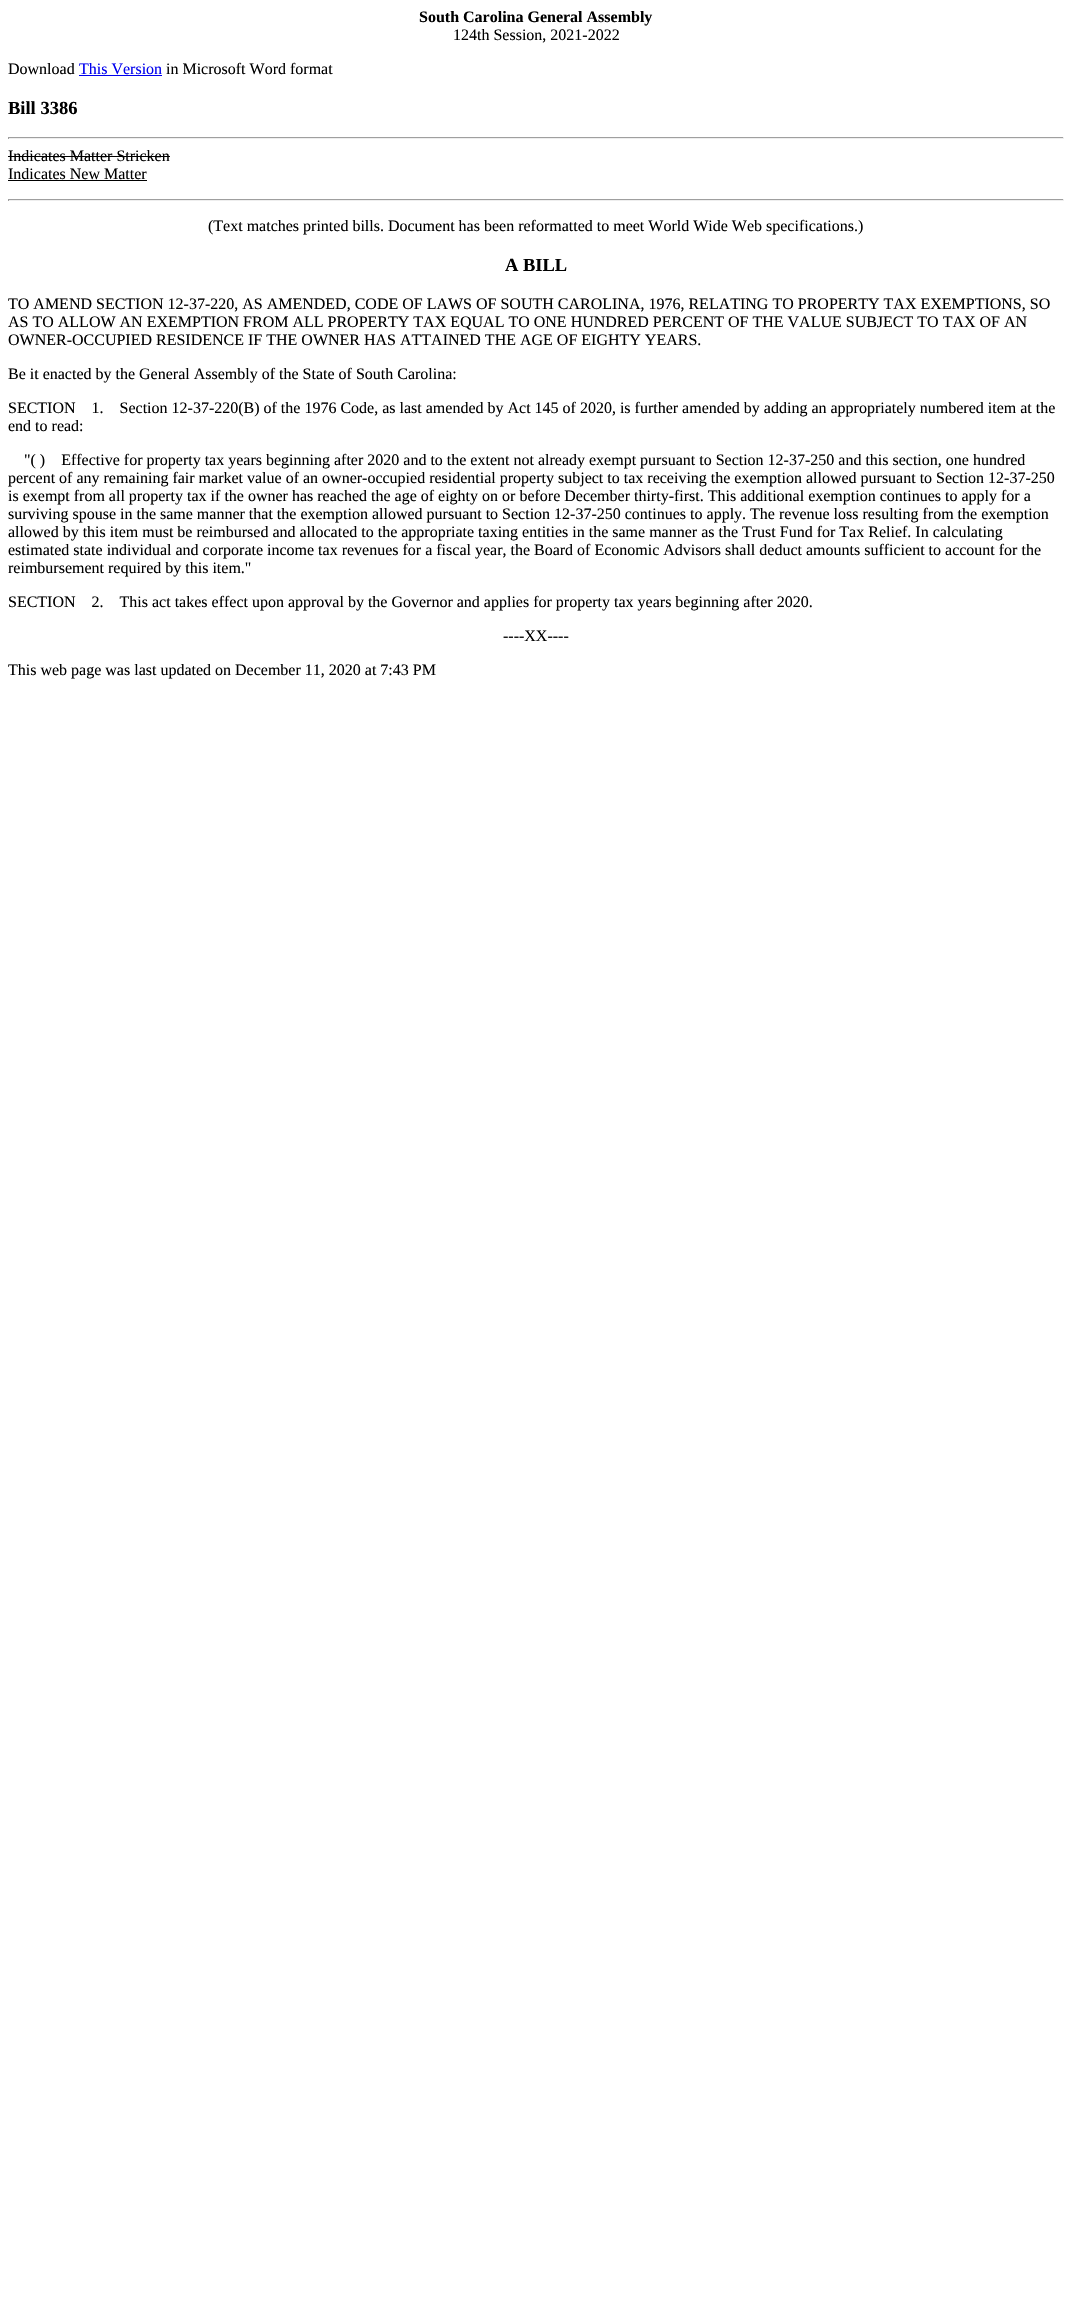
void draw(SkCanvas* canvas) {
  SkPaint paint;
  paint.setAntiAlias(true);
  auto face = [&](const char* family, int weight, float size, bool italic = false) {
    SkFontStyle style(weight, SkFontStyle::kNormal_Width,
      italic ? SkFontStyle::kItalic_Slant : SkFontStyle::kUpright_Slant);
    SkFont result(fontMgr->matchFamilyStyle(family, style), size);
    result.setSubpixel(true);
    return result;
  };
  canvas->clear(0xffffffff);
  {
    const struct { float x, y, w, h; SkColor color; } items[] = {
      {79, 75, 83, 1, 0xff0000ee},
      {8, 137, 1056, 1, 0xff9f9f9f},
      {1063, 137, 1, 2, 0xffeeeeee},
      {8, 138, 1056, 1, 0xffeeeeee},
      {8, 137, 1, 2, 0xff9f9f9f},
      {8, 156, 162, 1, 0xff000000},
      {8, 180, 139, 1, 0xff000000},
      {8, 199, 1056, 1, 0xff9f9f9f},
      {1063, 199, 1, 2, 0xffeeeeee},
      {8, 200, 1056, 1, 0xffeeeeee},
      {8, 199, 1, 2, 0xff9f9f9f},
    };
    for (auto [x, y, w, h, color] : items) {
      paint.setColor(color);
      canvas->drawRect(SkRect::MakeXYWH(x, y, w, h), paint);
    }
  }
  auto f0 = face("Liberation Serif", 700, 16);
  paint.setColor(0xff000000);
  canvas->drawString("South Carolina General Assembly", 419, 22, f0, paint);
  auto f1 = face("Liberation Serif", 400, 16);
  canvas->drawString("124th Session, 2021-2022", 453, 40, f1, paint);
  canvas->drawString("Download", 8, 74, f1, paint);
  paint.setColor(0xff0000ee);
  canvas->drawString("This Version", 79, 74, f1, paint);
  paint.setColor(0xff000000);
  canvas->drawString("in Microsoft Word format", 166, 74, f1, paint);
  auto f2 = face("Liberation Serif", 700, 18.5f);
  canvas->drawString("Bill 3386", 8, 114, f2, paint);
  {
    const struct { const char* s; float x, y; } items[] = {
      {"Indicates Matter Stricken", 8, 161},
      {"Indicates New Matter", 8, 179},
      {"(Text matches printed bills. Document has been reformatted to meet World Wide Web specifications.)", 208, 231},
    };
    for (auto [s, x, y] : items) {
      canvas->drawString(s, x, y, f1, paint);
    }
  }
  canvas->drawString("A BILL", 505, 271, f2, paint);
  {
    const struct { const char* s; float x, y; } items[] = {
      {"TO AMEND SECTION 12-37-220, AS AMENDED, CODE OF LAWS OF SOUTH CAROLINA, 1976, RELATING TO PROPERTY TAX EXEMPTIONS, SO", 8, 309},
      {"AS TO ALLOW AN EXEMPTION FROM ALL PROPERTY TAX EQUAL TO ONE HUNDRED PERCENT OF THE VALUE SUBJECT TO TAX OF AN", 8, 327},
      {"OWNER-OCCUPIED RESIDENCE IF THE OWNER HAS ATTAINED THE AGE OF EIGHTY YEARS.", 8, 345},
      {"Be it enacted by the General Assembly of the State of South Carolina:", 8, 379},
      {"SECTION    1.    Section 12-37-220(B) of the 1976 Code, as last amended by Act 145 of 2020, is further amended by adding an appropriately numbered item at the", 8, 413},
      {"end to read:", 8, 431},
      {"\"( )    Effective for property tax years beginning after 2020 and to the extent not already exempt pursuant to Section 12-37-250 and this section, one hundred", 24, 465},
      {"percent of any remaining fair market value of an owner-occupied residential property subject to tax receiving the exemption allowed pursuant to Section 12-37-250", 8, 483},
      {"is exempt from all property tax if the owner has reached the age of eighty on or before December thirty-first. This additional exemption continues to apply for a", 8, 501},
      {"surviving spouse in the same manner that the exemption allowed pursuant to Section 12-37-250 continues to apply. The revenue loss resulting from the exemption", 8, 519},
      {"allowed by this item must be reimbursed and allocated to the appropriate taxing entities in the same manner as the Trust Fund for Tax Relief. In calculating", 8, 537},
      {"estimated state individual and corporate income tax revenues for a fiscal year, the Board of Economic Advisors shall deduct amounts sufficient to account for the", 8, 555},
      {"reimbursement required by this item.\"", 8, 573},
      {"SECTION    2.    This act takes effect upon approval by the Governor and applies for property tax years beginning after 2020.", 8, 607},
      {"----XX----", 503, 641},
      {"This web page was last updated on December 11, 2020 at 7:43 PM", 8, 675},
    };
    for (auto [s, x, y] : items) {
      canvas->drawString(s, x, y, f1, paint);
    }
  }
}
